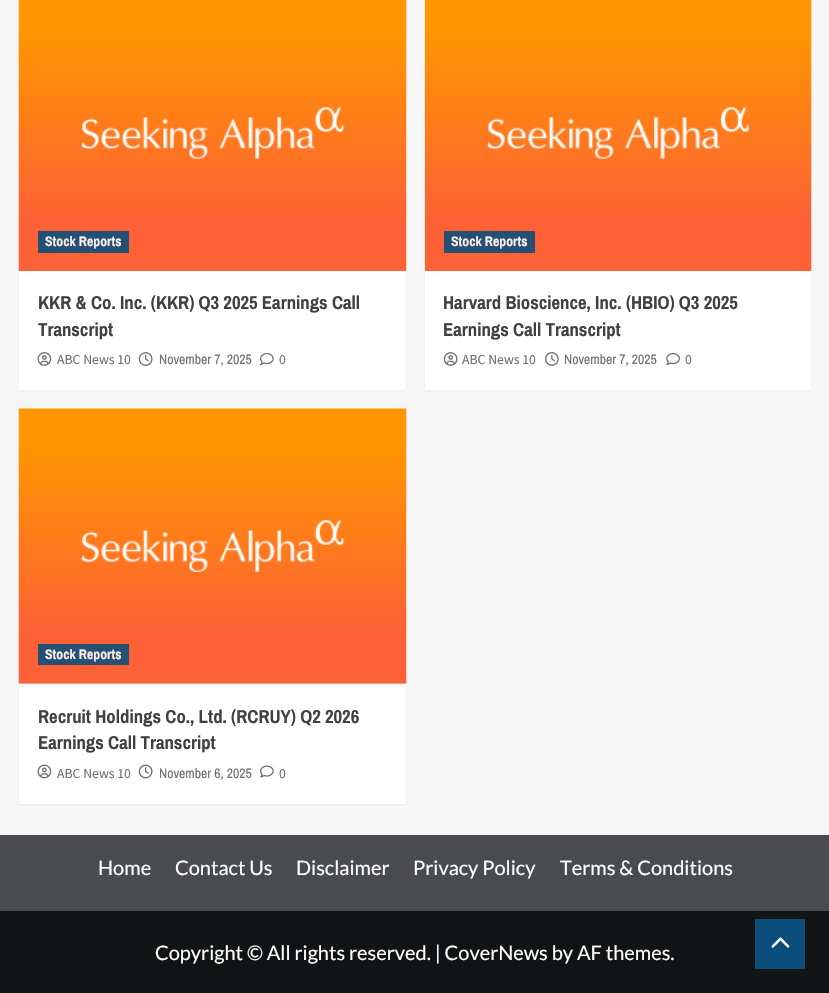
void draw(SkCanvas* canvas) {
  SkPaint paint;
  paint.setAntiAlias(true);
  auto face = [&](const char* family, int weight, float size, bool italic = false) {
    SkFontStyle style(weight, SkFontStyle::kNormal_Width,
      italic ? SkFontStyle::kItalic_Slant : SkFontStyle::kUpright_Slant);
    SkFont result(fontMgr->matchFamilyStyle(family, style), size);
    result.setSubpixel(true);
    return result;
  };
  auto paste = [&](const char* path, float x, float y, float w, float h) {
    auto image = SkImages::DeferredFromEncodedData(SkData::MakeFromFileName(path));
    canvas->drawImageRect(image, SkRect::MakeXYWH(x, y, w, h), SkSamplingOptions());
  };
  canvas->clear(0xfff7f7f7);
  paint.setColor(0x0d000000);
  paint.setMaskFilter(SkMaskFilter::MakeBlur(kNormal_SkBlurStyle, 1));
  canvas->drawRect(SkRect::MakeXYWH(19, -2, 387, 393), paint);
  paint.setMaskFilter(nullptr);
  paint.setColor(0xffffffff);
  canvas->drawRect(SkRect::MakeXYWH(19, 271, 387, 119), paint);
  paste("img/1.png", 18, 0, 389, 271);
  paint.setColor(0xff245074);
  canvas->drawRect(SkRect::MakeXYWH(38, 231, 91, 22), paint);
  paste("img/2.png", 37, 352, 15, 14);
  paste("img/3.png", 138, 352, 15, 14);
  paste("img/4.png", 260, 353, 14, 12);
  paint.setColor(0x0d000000);
  paint.setMaskFilter(SkMaskFilter::MakeBlur(kNormal_SkBlurStyle, 1));
  canvas->drawRect(SkRect::MakeXYWH(425, -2, 386, 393), paint);
  paint.setMaskFilter(nullptr);
  paint.setColor(0xffffffff);
  canvas->drawRect(SkRect::MakeXYWH(425, 271, 386, 119), paint);
  paste("img/5.png", 425, 0, 387, 271);
  paint.setColor(0xff245074);
  canvas->drawRect(SkRect::MakeXYWH(444, 231, 91, 22), paint);
  paste("img/6.png", 443, 352, 15, 14);
  paste("img/7.png", 545, 352, 14, 14);
  paste("img/8.png", 666, 353, 14, 12);
  paint.setColor(0x0d000000);
  paint.setMaskFilter(SkMaskFilter::MakeBlur(kNormal_SkBlurStyle, 1));
  canvas->drawRect(SkRect::MakeXYWH(19, 410, 387, 395), paint);
  paint.setMaskFilter(nullptr);
  paint.setColor(0xffffffff);
  canvas->drawRect(SkRect::MakeXYWH(19, 684, 387, 120), paint);
  paint.setColor(0xffd8d8d8);
  canvas->drawRect(SkRect::MakeXYWH(19, 683, 387, 1), paint);
  paste("img/9.png", 18, 408, 389, 276);
  paint.setColor(0xff245074);
  canvas->drawRect(SkRect::MakeXYWH(38, 644, 91, 21), paint);
  paste("img/10.png", 37, 764, 15, 15);
  paste("img/11.png", 138, 764, 15, 15);
  paste("img/12.png", 260, 765, 14, 13);
  {
    const struct { float x, y, w, h; SkColor color; } items[] = {
      {0, 835, 829, 76, 0xff494b4e},
      {0, 911, 829, 82, 0xff121314},
      {755, 919, 50, 50, 0xff0c4e7b},
    };
    for (auto [x, y, w, h, color] : items) {
      paint.setColor(color);
      canvas->drawRect(SkRect::MakeXYWH(x, y, w, h), paint);
    }
  }
  paste("img/13.png", 771, 937, 19, 11);
  auto f0 = face("Archivo Narrow", 700, 13.75f);
  paint.setColor(0xffffefeb);
  canvas->drawString("Stock Reports", 45, 246, f0, paint);
  auto f1 = face("Archivo Narrow", 700, 18.75f);
  paint.setColor(0xff404040);
  canvas->drawString("KKR & Co. Inc. (KKR) Q3 2025 Earnings Call", 38, 309, f1, paint);
  canvas->drawString("Transcript", 38, 336, f1, paint);
  auto f2 = face("Source Sans Pro", 400, 13.75f);
  paint.setColor(0xff707070);
  canvas->drawString("ABC News 10", 57, 364, f2, paint);
  auto f3 = face("Archivo Narrow", 400, 13.75f);
  canvas->drawString("November 7, 2025", 159, 364, f3, paint);
  canvas->drawString("0", 279, 364, f2, paint);
  paint.setColor(0xffffefeb);
  canvas->drawString("Stock Reports", 451, 246, f0, paint);
  paint.setColor(0xff404040);
  canvas->drawString("Harvard Bioscience, Inc. (HBIO) Q3 2025", 443, 309, f1, paint);
  canvas->drawString("Earnings Call Transcript", 443, 336, f1, paint);
  paint.setColor(0xff707070);
  canvas->drawString("ABC News 10", 462, 364, f2, paint);
  canvas->drawString("November 7, 2025", 564, 364, f3, paint);
  canvas->drawString("0", 685, 364, f2, paint);
  paint.setColor(0xffffefeb);
  canvas->drawString("Stock Reports", 45, 659, f0, paint);
  paint.setColor(0xff404040);
  canvas->drawString("Recruit Holdings Co., Ltd. (RCRUY) Q2 2026", 38, 723, f1, paint);
  canvas->drawString("Earnings Call Transcript", 38, 749, f1, paint);
  paint.setColor(0xff707070);
  canvas->drawString("ABC News 10", 57, 778, f2, paint);
  canvas->drawString("November 6, 2025", 159, 778, f3, paint);
  canvas->drawString("0", 279, 778, f2, paint);
  auto f4 = face("Lato", 400, 20);
  paint.setColor(0xffffffff);
  {
    const struct { const char* s; float x, y; } items[] = {
      {"Home", 98, 875},
      {"Contact Us", 175, 875},
      {"Disclaimer", 296, 875},
      {"Privacy Policy", 413, 875},
      {"Terms & Conditions", 560, 875},
      {"Copyright © All rights reserved. | CoverNews by AF themes.", 155, 960},
    };
    for (auto [s, x, y] : items) {
      canvas->drawString(s, x, y, f4, paint);
    }
  }
}
